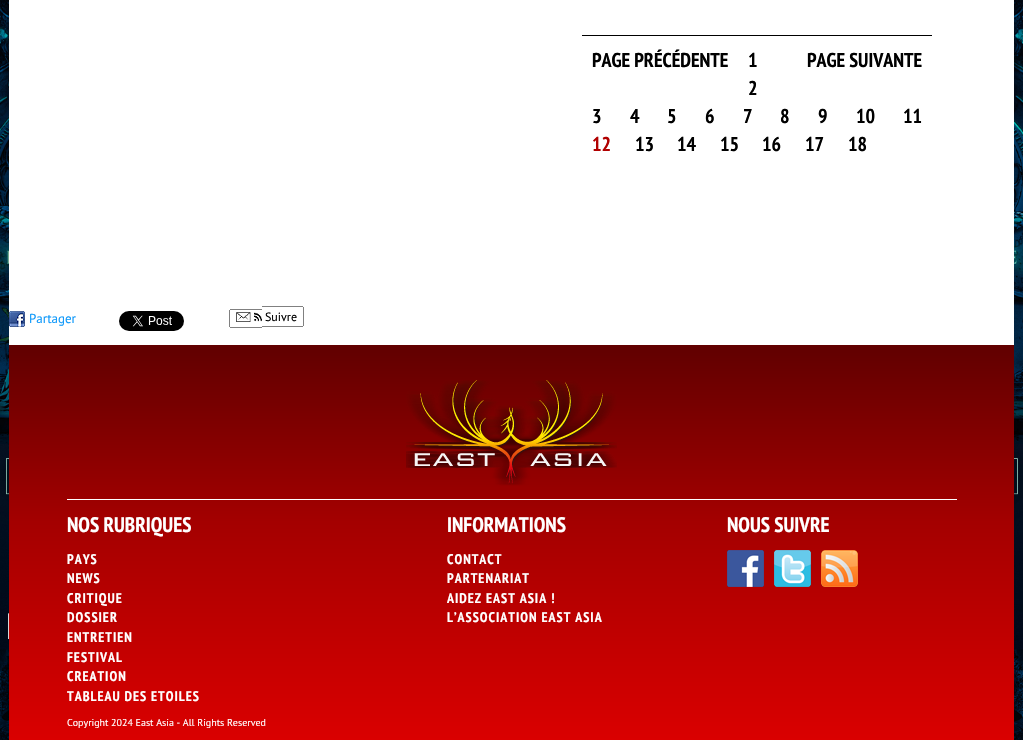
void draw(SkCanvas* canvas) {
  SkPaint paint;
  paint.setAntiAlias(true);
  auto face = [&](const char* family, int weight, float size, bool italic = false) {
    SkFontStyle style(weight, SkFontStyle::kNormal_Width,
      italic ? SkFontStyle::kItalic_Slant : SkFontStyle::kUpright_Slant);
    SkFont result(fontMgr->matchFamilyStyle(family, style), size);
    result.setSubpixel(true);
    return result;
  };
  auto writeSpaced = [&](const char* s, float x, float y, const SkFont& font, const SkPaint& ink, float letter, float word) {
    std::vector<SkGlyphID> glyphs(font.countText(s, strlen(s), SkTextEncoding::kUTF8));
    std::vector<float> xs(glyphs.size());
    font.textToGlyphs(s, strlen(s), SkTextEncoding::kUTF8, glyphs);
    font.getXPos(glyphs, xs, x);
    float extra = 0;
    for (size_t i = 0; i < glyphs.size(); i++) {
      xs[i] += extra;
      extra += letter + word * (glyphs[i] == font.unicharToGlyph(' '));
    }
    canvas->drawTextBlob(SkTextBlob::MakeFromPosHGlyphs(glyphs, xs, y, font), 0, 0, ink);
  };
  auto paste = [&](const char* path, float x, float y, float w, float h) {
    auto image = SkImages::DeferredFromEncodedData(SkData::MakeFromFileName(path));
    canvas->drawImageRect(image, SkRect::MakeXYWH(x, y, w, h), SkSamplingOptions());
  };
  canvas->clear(0xffffffff);
  paste("img/1.png", 0, 0, 1023, 740);
  paint.setColor(0xffffffff);
  canvas->drawRect(SkRect::MakeXYWH(9, 0, 1005, 345), paint);
  paint.setColor(0xff000000);
  canvas->drawRect(SkRect::MakeXYWH(582, 35, 350, 1), paint);
  paste("img/2.png", 9, 311, 16, 16);
  paste("img/3.png", 119, 311, 65, 20);
  paste("img/4.png", 236, 312, 26, 10);
  {
    const struct { float x, y, w, h; SkColor color; } items[] = {
      {230, 309, 32, 1, 0xff808080},
      {230, 327, 32, 1, 0xff808080},
      {229, 310, 1, 17, 0xff808080},
      {262, 306, 41, 1, 0xff808080},
      {303, 307, 1, 19, 0xff808080},
      {262, 326, 41, 1, 0xff808080},
    };
    for (auto [x, y, w, h, color] : items) {
      paint.setColor(color);
      canvas->drawRect(SkRect::MakeXYWH(x, y, w, h), paint);
    }
  }
  {
    const SkColor colors[] = {0xff620000, 0xffa40000, 0xffda0000};
    const float stops[] = {0.01f, 0.45f, 1};
    const SkPoint ends[] = {{512, 345}, {512, 740}};
    paint.setShader(SkGradientShader::MakeLinear(ends, colors, stops, 3, SkTileMode::kClamp));
    paint.setAlpha(255);
  }
  canvas->drawRect(SkRect::MakeXYWH(9, 345, 1005, 395), paint);
  paste("img/5.png", 406, 380, 211, 106);
  paint.setShader(nullptr);
  paint.setColor(0xffffffff);
  canvas->drawRect(SkRect::MakeXYWH(67, 499, 890, 1), paint);
  paste("img/6.png", 727, 550, 37, 37);
  paste("img/7.png", 774, 550, 37, 37);
  paste("img/8.png", 821, 550, 37, 37);
  auto f0 = face("PT Sans Narrow", 700, 20);
  paint.setColor(0xff000000);
  {
    const struct { const char* s; float x, y; } items[] = {
      {"PAGE PRÉCÉDENTE", 592, 67},
      {"1", 748, 67},
      {"PAGE SUIVANTE", 807, 67},
      {"2", 748, 95},
      {"3", 592, 123},
      {"4", 630, 123},
      {"5", 667, 123},
      {"6", 705, 123},
      {"7", 743, 123},
      {"8", 780, 123},
      {"9", 818, 123},
      {"10", 856, 123},
      {"11", 903, 123},
    };
    for (auto [s, x, y] : items) {
      canvas->drawString(s, x, y, f0, paint);
    }
  }
  paint.setColor(0xffb10000);
  canvas->drawString("12", 592, 151, f0, paint);
  paint.setColor(0xff000000);
  {
    const struct { const char* s; float x, y; } items[] = {
      {"13", 635, 151},
      {"14", 677, 151},
      {"15", 720, 151},
      {"16", 762, 151},
      {"17", 805, 151},
      {"18", 848, 151},
    };
    for (auto [s, x, y] : items) {
      canvas->drawString(s, x, y, f0, paint);
    }
  }
  auto f1 = face("PT Sans", 400, 13);
  paint.setColor(0xff0f99fa);
  canvas->drawString("Partager", 29, 323, f1, paint);
  auto f2 = face("PT Sans", 400, 12);
  paint.setColor(0xff000000);
  canvas->drawString("Suivre", 265, 321, f2, paint);
  auto f3 = face("PT Sans Narrow", 700, 21);
  paint.setColor(0xffffffff);
  canvas->drawString("NOS RUBRIQUES", 67, 532, f3, paint);
  auto f4 = face("PT Sans Narrow", 700, 14);
  {
    const struct { const char* s; float x, y; } items[] = {
      {"PAYS", 67, 564},
      {"NEWS", 67, 583},
      {"CRITIQUE", 67, 603},
      {"DOSSIER", 67, 622},
      {"ENTRETIEN", 67, 642},
      {"FESTIVAL", 67, 662},
      {"CREATION", 67, 681},
      {"TABLEAU DES ETOILES", 67, 701},
    };
    for (auto [s, x, y] : items) {
      writeSpaced(s, x, y, f4, paint, 1, 0);
    }
  }
  canvas->drawString("INFORMATIONS", 447, 532, f3, paint);
  {
    const struct { const char* s; float x, y; } items[] = {
      {"CONTACT", 447, 564},
      {"PARTENARIAT", 447, 583},
      {"AIDEZ EAST ASIA !", 447, 603},
      {"L’ASSOCIATION EAST ASIA", 447, 622},
    };
    for (auto [s, x, y] : items) {
      writeSpaced(s, x, y, f4, paint, 1, 0);
    }
  }
  canvas->drawString("NOUS SUIVRE", 727, 532, f3, paint);
  auto f5 = face("PT Sans", 400, 10);
  canvas->drawString("Copyright 2024 East Asia - All Rights Reserved", 67, 726, f5, paint);
}
